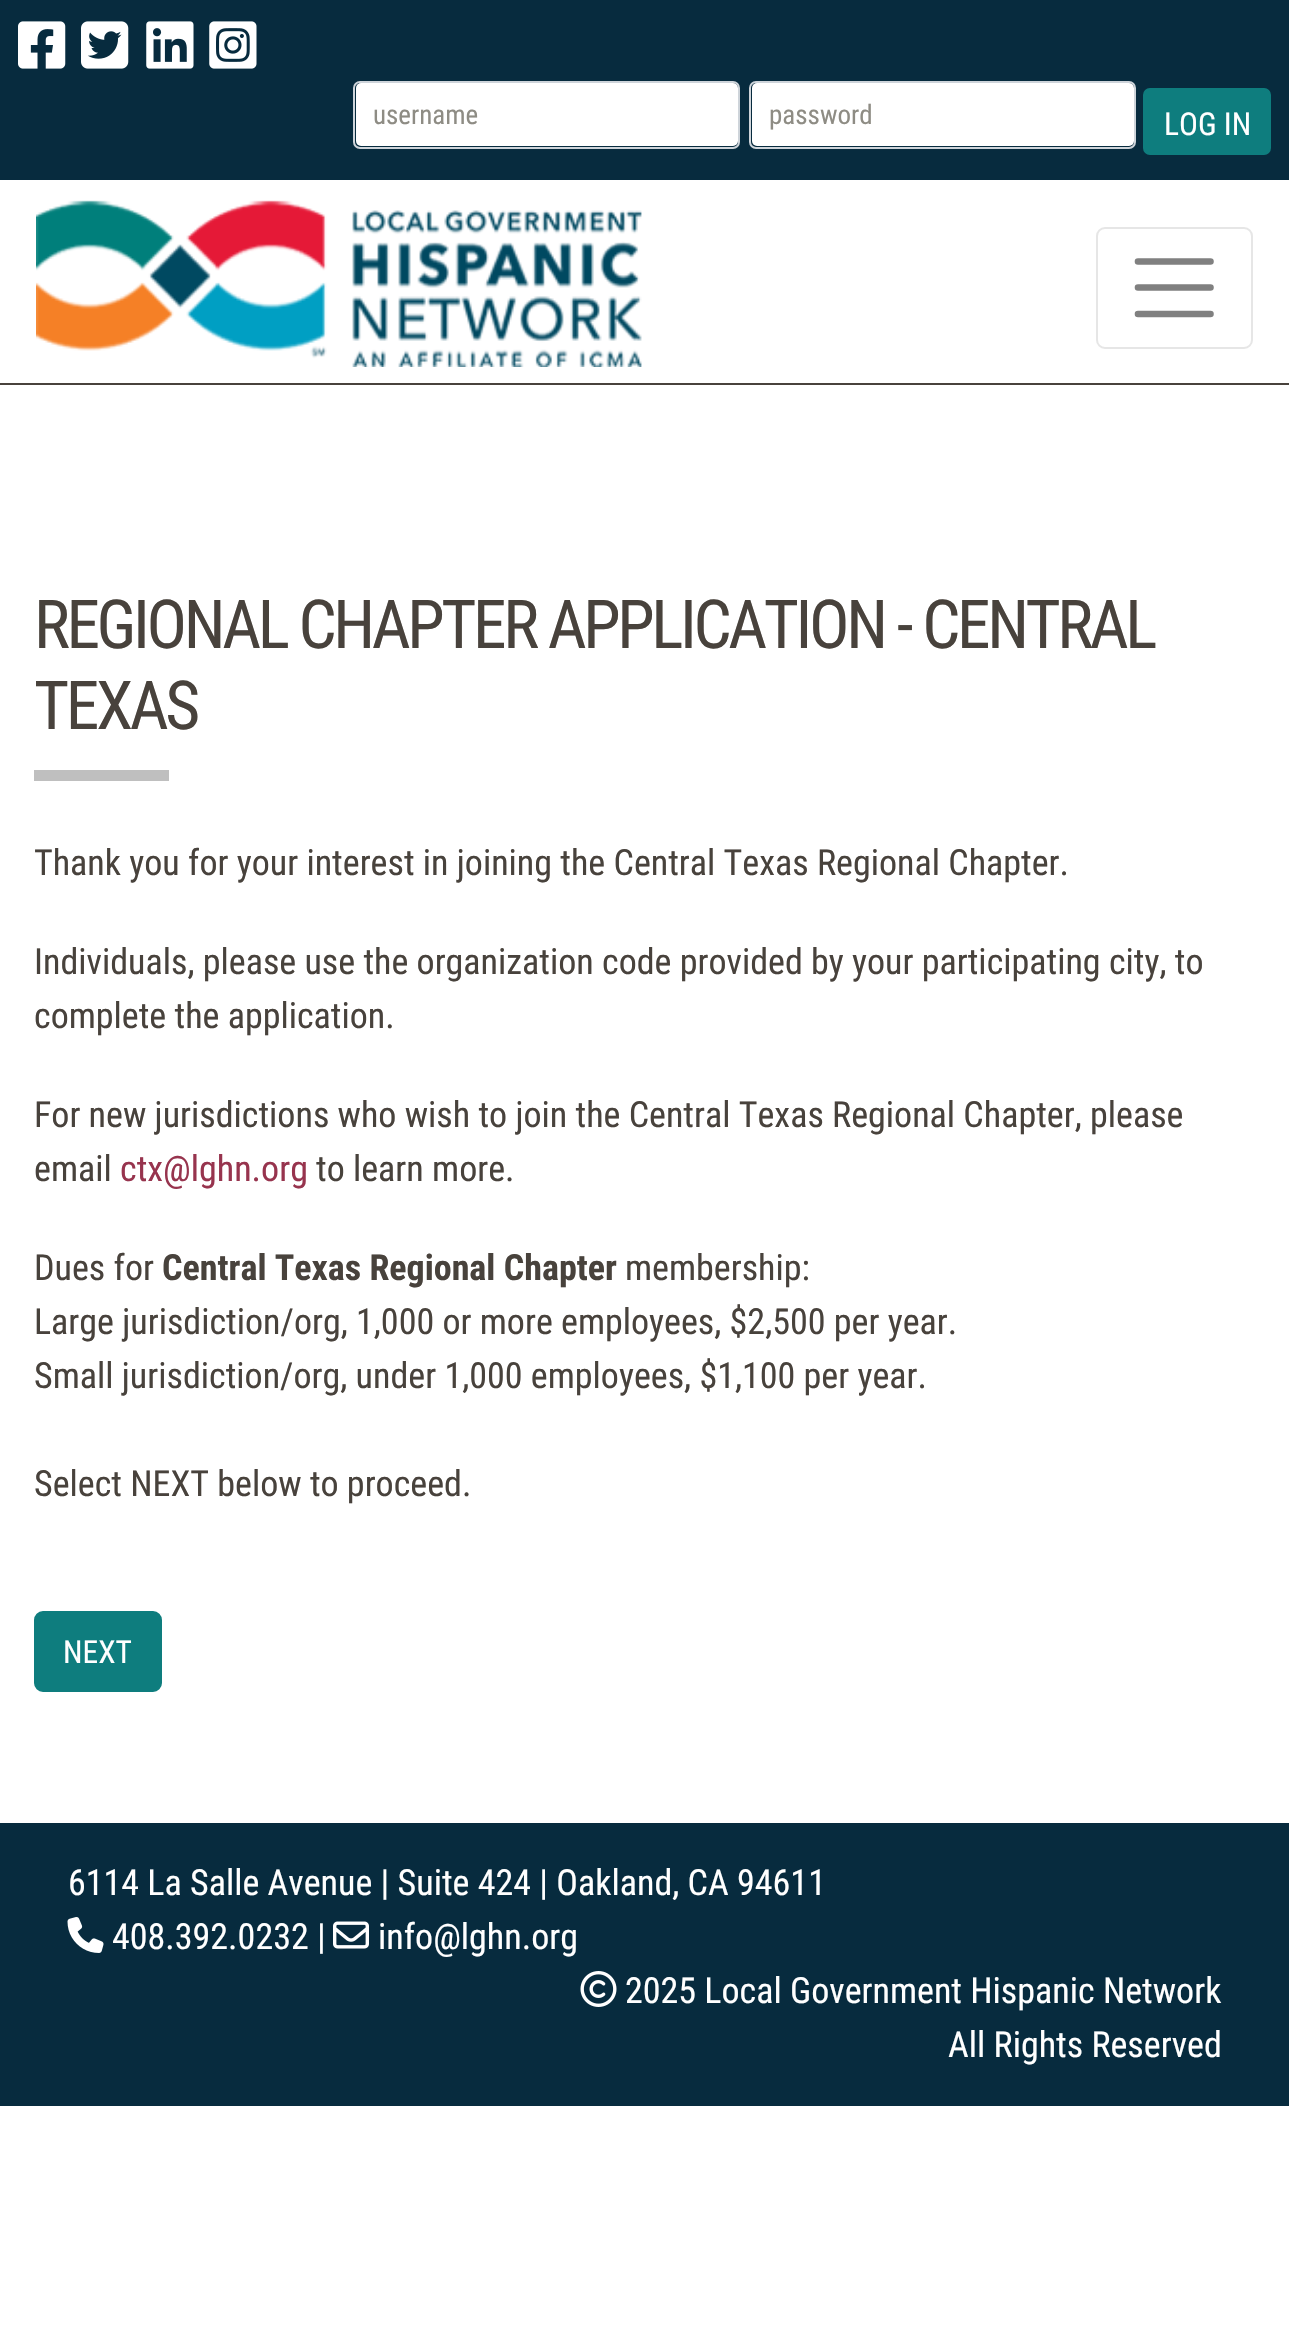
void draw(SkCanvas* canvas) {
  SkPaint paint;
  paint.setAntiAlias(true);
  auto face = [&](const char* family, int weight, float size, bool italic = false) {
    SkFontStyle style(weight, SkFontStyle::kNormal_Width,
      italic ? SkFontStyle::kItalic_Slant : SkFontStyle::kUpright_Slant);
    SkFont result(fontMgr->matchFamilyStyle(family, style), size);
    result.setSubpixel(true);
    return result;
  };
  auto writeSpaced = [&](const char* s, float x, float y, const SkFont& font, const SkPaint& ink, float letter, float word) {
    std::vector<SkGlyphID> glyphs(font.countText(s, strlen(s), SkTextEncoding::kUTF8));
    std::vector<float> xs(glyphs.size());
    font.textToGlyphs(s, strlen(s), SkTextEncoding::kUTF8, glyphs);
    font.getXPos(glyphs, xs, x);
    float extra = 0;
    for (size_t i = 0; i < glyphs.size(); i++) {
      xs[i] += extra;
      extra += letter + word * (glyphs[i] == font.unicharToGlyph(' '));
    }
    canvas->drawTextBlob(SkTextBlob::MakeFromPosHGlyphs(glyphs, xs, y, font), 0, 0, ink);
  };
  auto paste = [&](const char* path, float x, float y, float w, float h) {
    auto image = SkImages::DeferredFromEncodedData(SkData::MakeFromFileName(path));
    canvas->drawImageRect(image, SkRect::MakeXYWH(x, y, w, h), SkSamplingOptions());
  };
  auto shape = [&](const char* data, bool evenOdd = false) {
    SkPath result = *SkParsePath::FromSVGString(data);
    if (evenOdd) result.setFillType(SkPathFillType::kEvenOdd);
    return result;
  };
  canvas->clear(0xffffffff);
  paint.setColor(0xff072b3e);
  canvas->drawRect(SkRect::MakeXYWH(0, 0, 1289, 180), paint);
  paste("img/1.png", 18, 21, 48, 48);
  paste("img/2.png", 81, 21, 48, 48);
  paste("img/3.png", 146, 21, 48, 48);
  paste("img/4.png", 209, 21, 48, 48);
  paint.setColor(0xffffffff);
  canvas->drawRoundRect(SkRect::MakeXYWH(356, 83, 382, 63), 5, 5, paint);
  paint.setStroke(true);
  paint.setStrokeWidth(2);
  paint.setColor(0xffced4da);
  canvas->drawRoundRect(SkRect::MakeXYWH(354, 82, 385, 66), 6, 6, paint);
  paint.setStroke(false);
  paint.setColor(0xffffffff);
  canvas->drawRoundRect(SkRect::MakeXYWH(752, 83, 382, 63), 5, 5, paint);
  paint.setStroke(true);
  paint.setColor(0xffced4da);
  canvas->drawRoundRect(SkRect::MakeXYWH(750, 82, 385, 66), 6, 6, paint);
  paint.setStroke(false);
  paint.setColor(0xff0e7d7e);
  canvas->drawRoundRect(SkRect::MakeXYWH(1144, 89, 126, 65), 6, 6, paint);
  paint.setStroke(true);
  canvas->drawRoundRect(SkRect::MakeXYWH(1144, 89, 126, 65), 6, 6, paint);
  paint.setStroke(false);
  paint.setColor(0xff48423c);
  canvas->drawRect(SkRect::MakeXYWH(0, 383, 1289, 2), paint);
  paste("img/5.png", 36, 200, 606, 167);
  paint.setStroke(true);
  paint.setColor(0xffe6e6e6);
  canvas->drawRoundRect(SkRect::MakeXYWH(1097, 228, 155, 120), 8, 8, paint);
  paint.setStrokeWidth(6.6f);
  paint.setStrokeCap(SkPaint::kRound_Cap);
  paint.setColor(0xff808080);
  canvas->drawPath(shape("M1138 261.5H1210.5M1138 287.5H1210.5M1138 314H1210.5"), paint);
  paint.setStroke(false);
  paint.setColor(0xffbfbfbf);
  canvas->drawRect(SkRect::MakeXYWH(34, 770, 135, 11), paint);
  paint.setColor(0xff0e7d7e);
  canvas->drawRoundRect(SkRect::MakeXYWH(35, 1612, 126, 79), 8, 8, paint);
  paint.setStroke(true);
  paint.setStrokeWidth(2);
  paint.setStrokeCap(SkPaint::kButt_Cap);
  canvas->drawRoundRect(SkRect::MakeXYWH(35, 1612, 126, 79), 8, 8, paint);
  paint.setStroke(false);
  paint.setColor(0xff072b3e);
  canvas->drawRect(SkRect::MakeXYWH(0, 1823, 1289, 283), paint);
  paste("img/6.png", 67, 1917, 37, 36);
  paste("img/7.png", 333, 1921, 36, 28);
  paste("img/8.png", 580, 1971, 37, 36);
  auto f0 = face("Roboto Condensed", 400, 27);
  paint.setColor(0xff8e8c84);
  canvas->drawString("username", 373, 124, f0, paint);
  canvas->drawString("password", 769, 124, f0, paint);
  auto f1 = face("Roboto Condensed", 400, 31.5f);
  paint.setColor(0xffffffff);
  canvas->drawString("LOG IN", 1164, 135, f1, paint);
  auto f2 = face("Roboto Condensed", 400, 67.5f);
  paint.setColor(0xff48423c);
  writeSpaced("REGIONAL CHAPTER APPLICATION - CENTRAL", 34, 648, f2, paint, -3.4f, 0);
  writeSpaced("TEXAS", 34, 729, f2, paint, -3.4f, 0);
  auto f3 = face("Roboto Condensed", 400, 36);
  {
    const struct { const char* s; float x, y; } items[] = {
      {"Thank you for your interest in joining the Central Texas Regional Chapter.", 34, 875},
      {"Individuals, please use the organization code provided by your participating city, to", 34, 974},
      {"complete the application.", 34, 1028},
      {"For new jurisdictions who wish to join the Central Texas Regional Chapter, please", 34, 1127},
      {"email", 34, 1181},
    };
    for (auto [s, x, y] : items) {
      canvas->drawString(s, x, y, f3, paint);
    }
  }
  paint.setColor(0xff97344e);
  canvas->drawString("ctx@lghn.org", 120, 1181, f3, paint);
  paint.setColor(0xff48423c);
  canvas->drawString("to learn more.", 316, 1181, f3, paint);
  canvas->drawString("Dues for", 34, 1280, f3, paint);
  auto f4 = face("Roboto Condensed", 700, 36);
  canvas->drawString("Central Texas Regional Chapter", 162, 1280, f4, paint);
  {
    const struct { const char* s; float x, y; } items[] = {
      {"membership:", 625, 1280},
      {"Large jurisdiction/org, 1,000 or more employees, $2,500 per year.", 34, 1334},
      {"Small jurisdiction/org, under 1,000 employees, $1,100 per year.", 34, 1388},
      {"Select NEXT below to proceed.", 34, 1496},
    };
    for (auto [s, x, y] : items) {
      canvas->drawString(s, x, y, f3, paint);
    }
  }
  paint.setColor(0xffffffff);
  canvas->drawString("NEXT", 63, 1663, f1, paint);
  {
    const struct { const char* s; float x, y; } items[] = {
      {"6114 La Salle Avenue | Suite 424 | Oakland, CA 94611", 68, 1895},
      {"408.392.0232 |", 112, 1949},
      {"info@lghn.org", 378, 1949},
      {"2025 Local Government Hispanic Network", 625, 2003},
      {"All Rights Reserved", 948, 2057},
    };
    for (auto [s, x, y] : items) {
      canvas->drawString(s, x, y, f3, paint);
    }
  }
}
